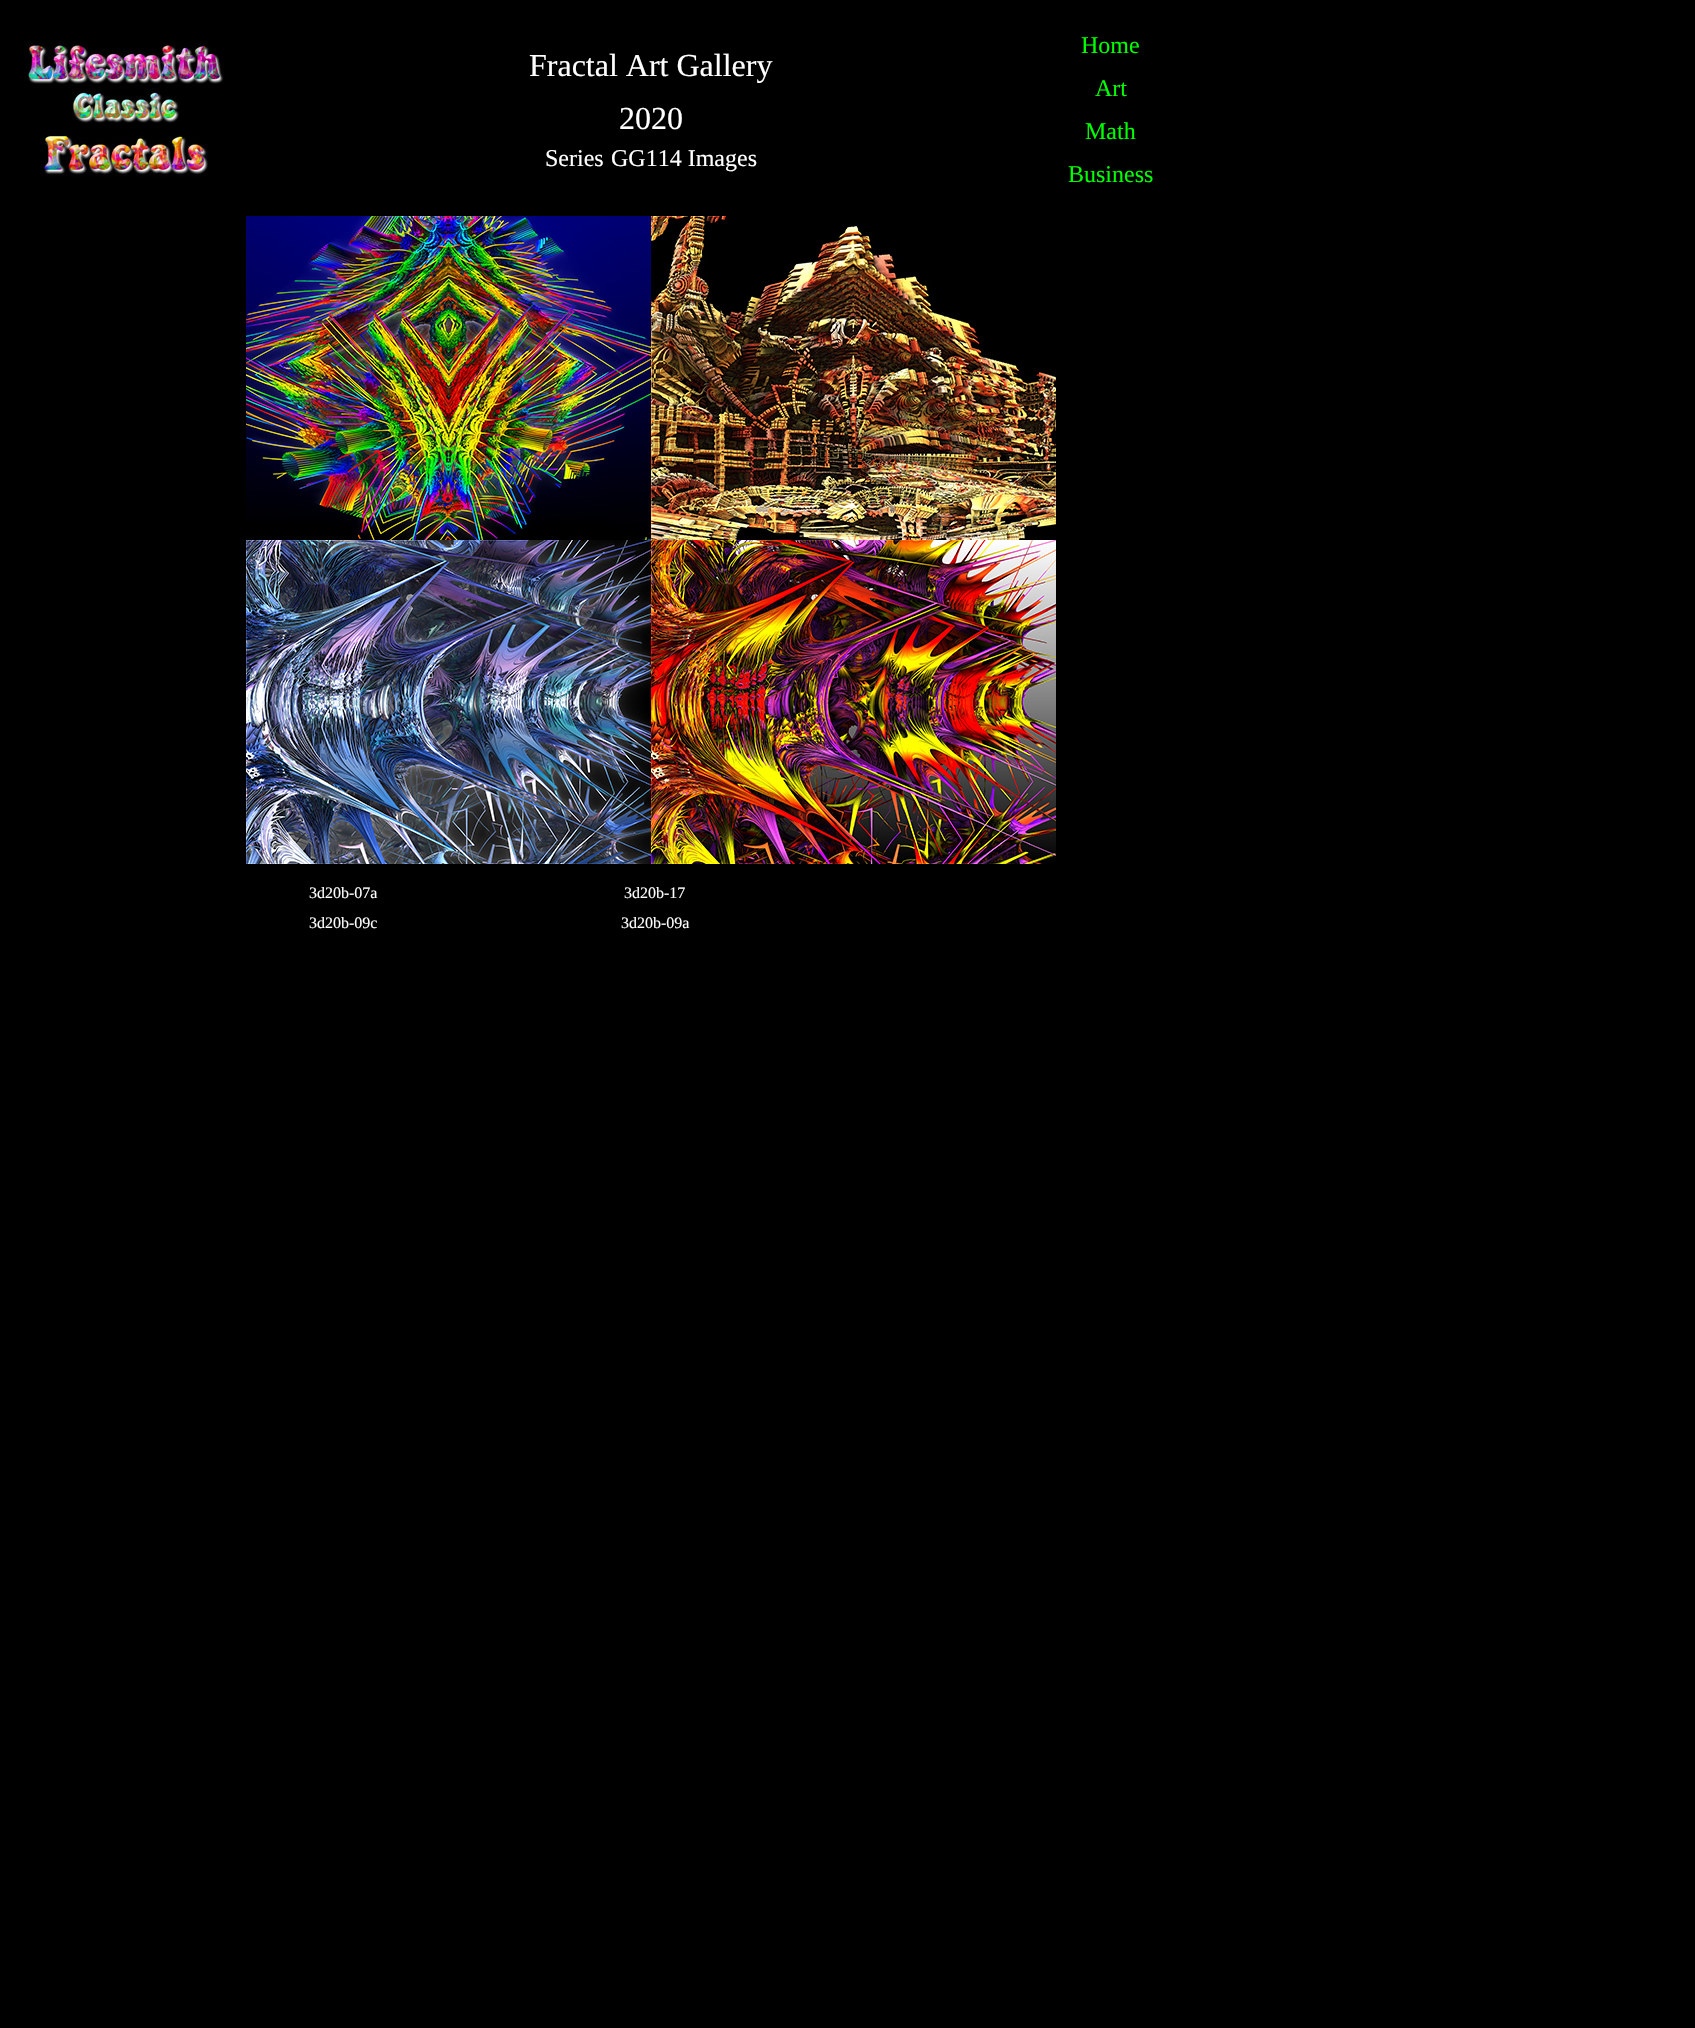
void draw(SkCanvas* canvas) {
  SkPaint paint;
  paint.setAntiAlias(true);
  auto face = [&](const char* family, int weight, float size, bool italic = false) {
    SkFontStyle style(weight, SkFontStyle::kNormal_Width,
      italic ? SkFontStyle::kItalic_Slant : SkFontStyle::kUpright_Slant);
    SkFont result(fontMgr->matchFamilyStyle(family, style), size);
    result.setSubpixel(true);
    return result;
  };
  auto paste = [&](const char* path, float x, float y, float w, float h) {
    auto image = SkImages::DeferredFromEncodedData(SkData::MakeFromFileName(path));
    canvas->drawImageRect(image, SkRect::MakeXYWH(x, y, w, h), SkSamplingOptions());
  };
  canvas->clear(0xff000000);
  paste("img/1.png", 24, 41, 200, 136);
  paste("img/2.png", 246, 216, 810, 648);
  auto f0 = face("Liberation Serif", 400, 32);
  paint.setColor(0xffffffff);
  canvas->drawString("Fractal Art Gallery", 529, 76, f0, paint);
  canvas->drawString("2020", 619, 129, f0, paint);
  auto f1 = face("Liberation Serif", 400, 24);
  canvas->drawString("Series", 545, 166, f1, paint);
  canvas->drawString("GG114 Images", 611, 166, f1, paint);
  paint.setColor(0xff00ff00);
  {
    const struct { const char* s; float x, y; } items[] = {
      {"Home", 1081, 53},
      {"Art", 1095, 96},
      {"Math", 1085, 139},
      {"Business", 1068, 182},
    };
    for (auto [s, x, y] : items) {
      canvas->drawString(s, x, y, f1, paint);
    }
  }
  auto f2 = face("Liberation Serif", 400, 16);
  paint.setColor(0xffffffff);
  {
    const struct { const char* s; float x, y; } items[] = {
      {"3d20b-07a", 309, 898},
      {"3d20b-17", 624, 898},
      {"3d20b-09c", 309, 928},
      {"3d20b-09a", 621, 928},
    };
    for (auto [s, x, y] : items) {
      canvas->drawString(s, x, y, f2, paint);
    }
  }
}
